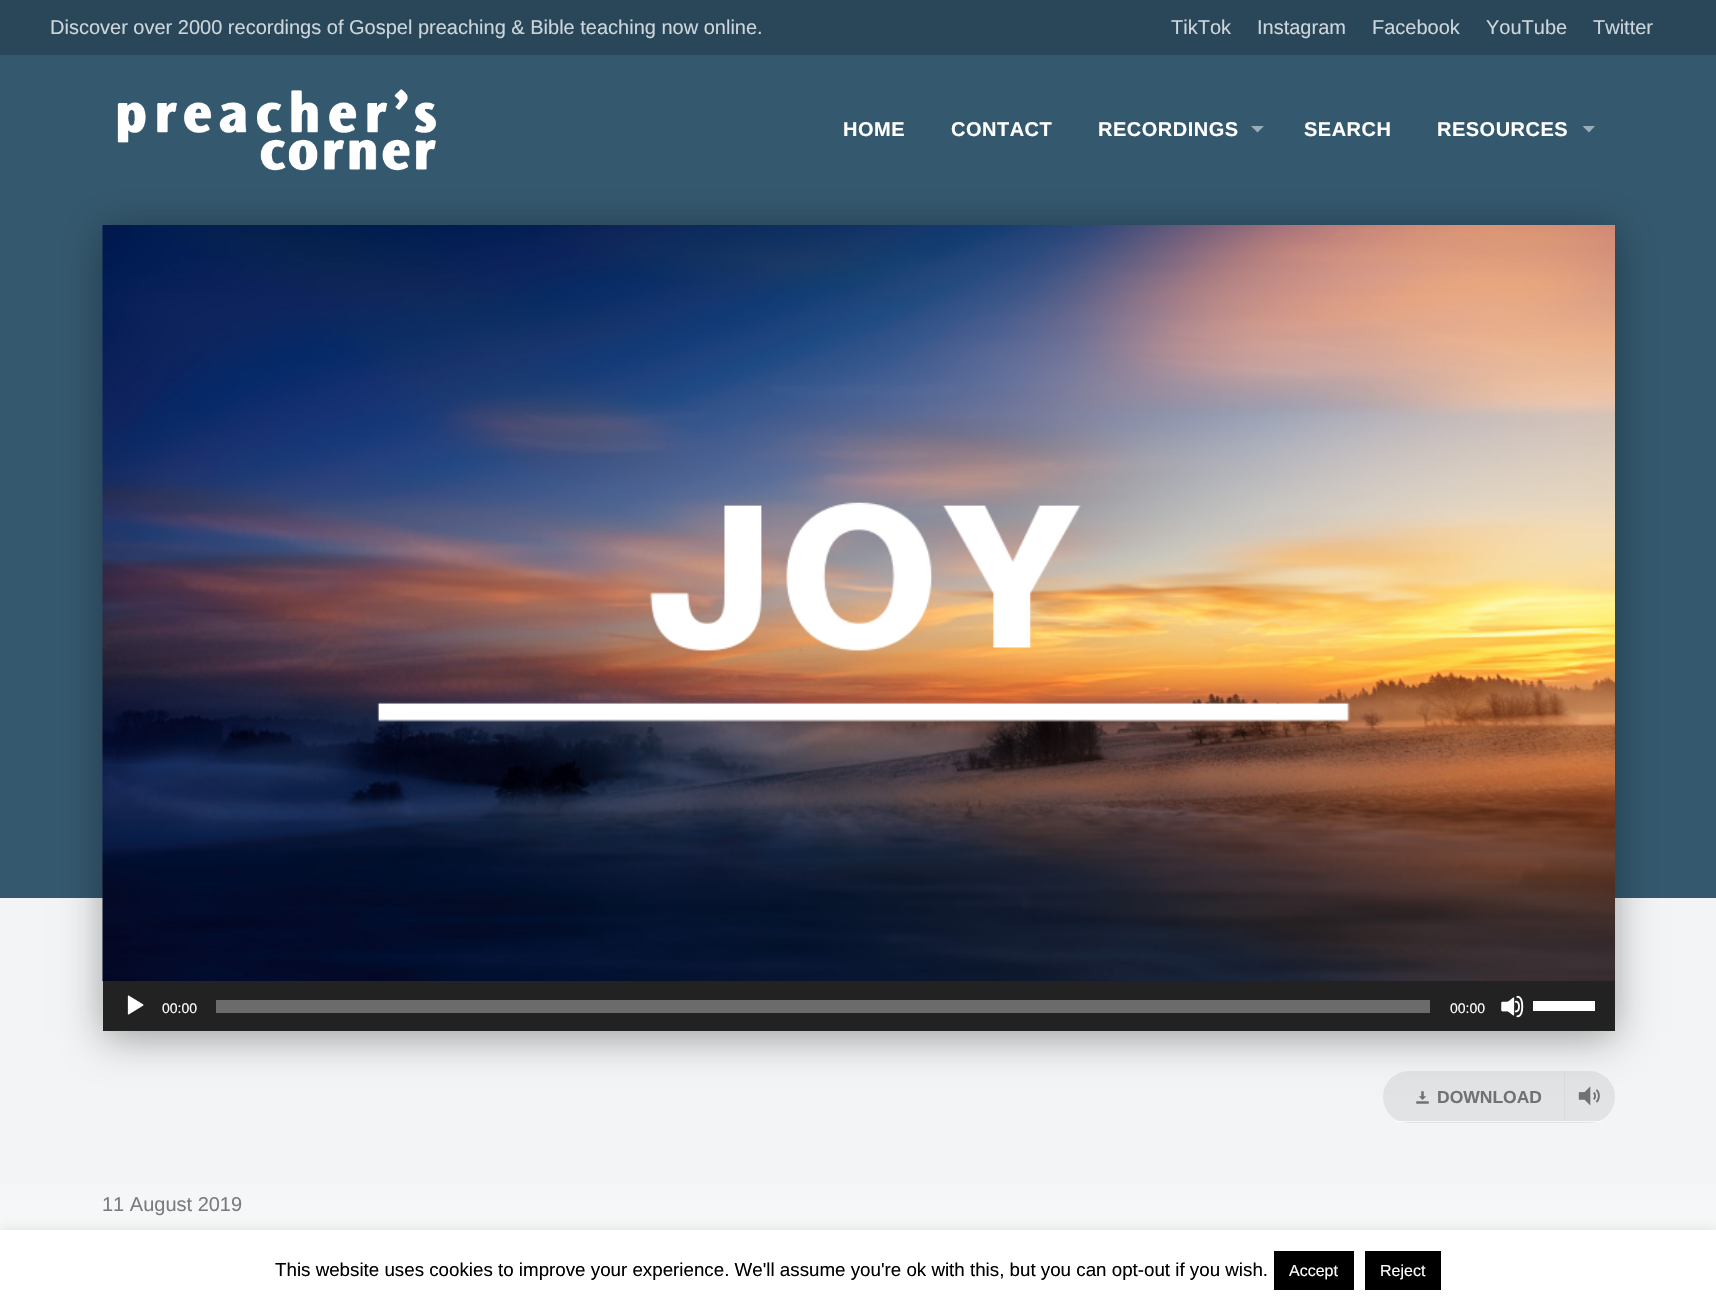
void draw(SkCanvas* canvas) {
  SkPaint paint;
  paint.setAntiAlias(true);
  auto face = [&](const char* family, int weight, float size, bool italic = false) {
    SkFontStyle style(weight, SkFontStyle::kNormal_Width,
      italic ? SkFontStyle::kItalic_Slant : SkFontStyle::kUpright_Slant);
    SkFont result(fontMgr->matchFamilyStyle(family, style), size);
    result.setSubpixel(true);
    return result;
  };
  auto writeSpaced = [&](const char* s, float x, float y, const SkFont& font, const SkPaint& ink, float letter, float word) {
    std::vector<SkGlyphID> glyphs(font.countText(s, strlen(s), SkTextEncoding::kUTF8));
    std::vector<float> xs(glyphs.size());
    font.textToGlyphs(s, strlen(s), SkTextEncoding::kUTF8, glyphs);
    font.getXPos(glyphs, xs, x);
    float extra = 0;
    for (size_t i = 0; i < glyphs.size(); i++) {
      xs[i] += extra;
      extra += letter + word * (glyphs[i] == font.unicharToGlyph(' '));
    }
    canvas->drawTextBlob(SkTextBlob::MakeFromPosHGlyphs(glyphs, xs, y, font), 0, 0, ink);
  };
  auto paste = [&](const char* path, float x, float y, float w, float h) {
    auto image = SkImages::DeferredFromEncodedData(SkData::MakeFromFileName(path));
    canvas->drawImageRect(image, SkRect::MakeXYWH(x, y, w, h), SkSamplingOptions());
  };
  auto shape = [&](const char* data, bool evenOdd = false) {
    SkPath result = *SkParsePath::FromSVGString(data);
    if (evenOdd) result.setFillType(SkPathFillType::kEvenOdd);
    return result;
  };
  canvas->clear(0xfff2f4f5);
  paint.setColor(0xff34586e);
  canvas->drawRect(SkRect::MakeXYWH(0, 55, 1716, 843), paint);
  paint.setColor(0xff2a4759);
  canvas->drawRect(SkRect::MakeXYWH(0, 0, 1716, 55), paint);
  paste("img/1.png", 117, 89, 320, 82);
  paint.setColor(0xff9aacb7);
  canvas->drawPath(shape("M1251 126H1264L1257.5 132.5Z"), paint);
  canvas->drawPath(shape("M1582.5 126H1595L1589 132.5Z"), paint);
  paint.setColor(0xffe1e3e4);
  canvas->drawRoundRect(SkRect::MakeXYWH(1383, 1071, 232, 52), 26, 26, paint);
  paste("img/5.png", 1416, 1091, 13, 13);
  paint.setColor(0xffd8dadb);
  canvas->drawRect(SkRect::MakeXYWH(1564, 1071, 1, 50), paint);
  paste("img/6.png", 1578, 1086, 22, 20);
  paint.setColor(0x59000000);
  paint.setMaskFilter(SkMaskFilter::MakeBlur(kNormal_SkBlurStyle, 19));
  canvas->drawRect(SkRect::MakeXYWH(103, 231, 1512, 807), paint);
  paint.setMaskFilter(nullptr);
  paste("img/2.png", 102, 225, 1513, 757);
  paint.setColor(0xff222222);
  canvas->drawRect(SkRect::MakeXYWH(103, 981, 1512, 50), paint);
  paste("img/3.png", 127, 995, 17, 20);
  paint.setColor(0xff6b6b6b);
  canvas->drawRect(SkRect::MakeXYWH(216, 1000, 1214, 13), paint);
  paste("img/4.png", 1501, 995, 23, 23);
  paint.setColor(0xffffffff);
  canvas->drawRect(SkRect::MakeXYWH(1533, 1001, 62, 10), paint);
  paint.setColor(0xb3ffffff);
  canvas->drawRect(SkRect::MakeXYWH(1395, 1121, 208, 1), paint);
  {
    const SkColor colors[] = {0xfff2f4f5, 0xffffffff};
    const float stops[] = {0, 0.1f};
    const SkPoint ends[] = {{858, 1123}, {858, 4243}};
    paint.setShader(SkGradientShader::MakeLinear(ends, colors, stops, 2, SkTileMode::kClamp));
    paint.setAlpha(255);
  }
  canvas->drawRect(SkRect::MakeXYWH(0, 1183, 1716, 47), paint);
  paint.setShader(nullptr);
  paint.setColor(0x4dacabab);
  paint.setMaskFilter(SkMaskFilter::MakeBlur(kNormal_SkBlurStyle, 6));
  canvas->drawRect(SkRect::MakeXYWH(0, 1229, 1716, 75), paint);
  paint.setMaskFilter(nullptr);
  {
    const struct { float x, y, w, h; SkColor color; } items[] = {
      {0, 1230, 1716, 74, 0xffffffff},
      {1274, 1251, 80, 39, 0xff000000},
      {1365, 1251, 76, 39, 0xff000000},
    };
    for (auto [x, y, w, h, color] : items) {
      paint.setColor(color);
      canvas->drawRect(SkRect::MakeXYWH(x, y, w, h), paint);
    }
  }
  auto f0 = face("Liberation Sans", 400, 20);
  paint.setColor(0xffccd5db);
  {
    const struct { const char* s; float x, y; } items[] = {
      {"Discover over 2000 recordings of Gospel preaching & Bible teaching now online.", 50, 34},
      {"TikTok", 1171, 34},
      {"Instagram", 1257, 34},
      {"Facebook", 1372, 34},
      {"YouTube", 1486, 34},
      {"Twitter", 1593, 34},
    };
    for (auto [s, x, y] : items) {
      canvas->drawString(s, x, y, f0, paint);
    }
  }
  auto f1 = face("Liberation Sans", 700, 20);
  paint.setColor(0xffffffff);
  {
    const struct { const char* s; float x, y; } items[] = {
      {"HOME", 843, 136},
      {"CONTACT", 951, 136},
      {"RECORDINGS", 1098, 136},
      {"SEARCH", 1304, 136},
      {"RESOURCES", 1437, 136},
    };
    for (auto [s, x, y] : items) {
      writeSpaced(s, x, y, f1, paint, 0.5f, 0);
    }
  }
  auto f2 = face("Liberation Sans", 400, 14);
  canvas->drawString("00:00", 162, 1013, f2, paint);
  canvas->drawString("00:00", 1450, 1013, f2, paint);
  auto f3 = face("Liberation Sans", 700, 17.5f);
  paint.setColor(0xff717272);
  canvas->drawString("DOWNLOAD", 1437, 1103, f3, paint);
  paint.setColor(0xff7b7c7c);
  canvas->drawString("11 August 2019", 102, 1211, f0, paint);
  auto f4 = face("Liberation Sans", 400, 18.75f);
  paint.setColor(0xff000000);
  canvas->drawString("This website uses cookies to improve your experience. We'll assume you're ok with this, but you can opt-out if you wish.", 275, 1276, f4, paint);
  auto f5 = face("Liberation Sans", 400, 16);
  paint.setColor(0xffffffff);
  canvas->drawString("Accept", 1289, 1276, f5, paint);
  canvas->drawString("Reject", 1380, 1276, f5, paint);
}
